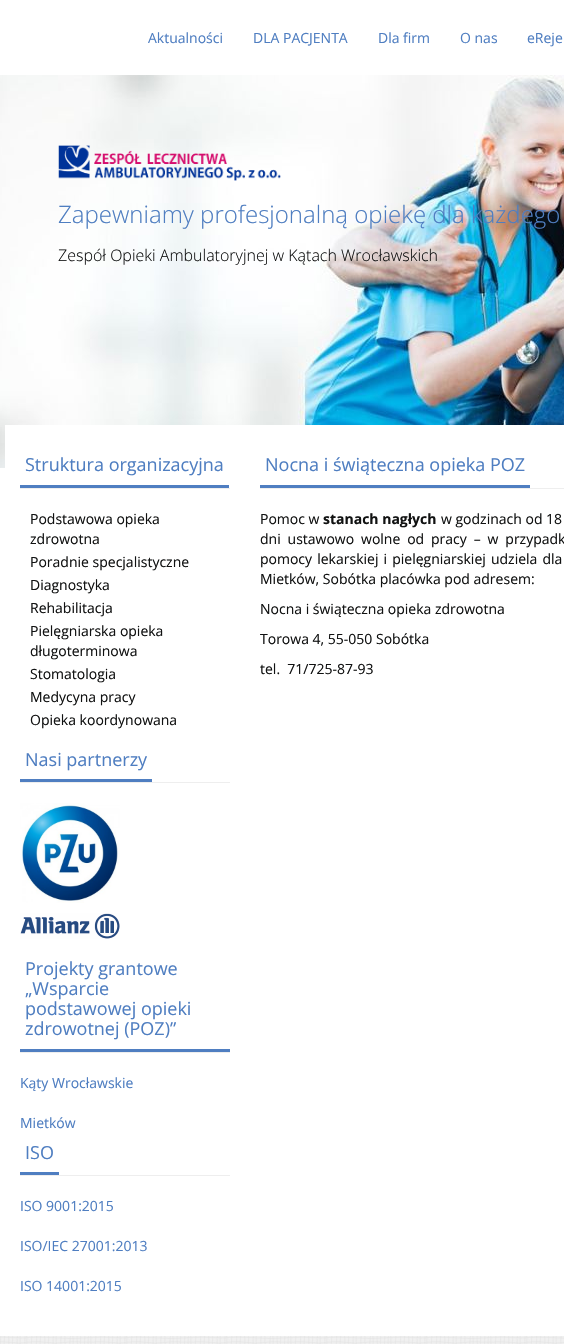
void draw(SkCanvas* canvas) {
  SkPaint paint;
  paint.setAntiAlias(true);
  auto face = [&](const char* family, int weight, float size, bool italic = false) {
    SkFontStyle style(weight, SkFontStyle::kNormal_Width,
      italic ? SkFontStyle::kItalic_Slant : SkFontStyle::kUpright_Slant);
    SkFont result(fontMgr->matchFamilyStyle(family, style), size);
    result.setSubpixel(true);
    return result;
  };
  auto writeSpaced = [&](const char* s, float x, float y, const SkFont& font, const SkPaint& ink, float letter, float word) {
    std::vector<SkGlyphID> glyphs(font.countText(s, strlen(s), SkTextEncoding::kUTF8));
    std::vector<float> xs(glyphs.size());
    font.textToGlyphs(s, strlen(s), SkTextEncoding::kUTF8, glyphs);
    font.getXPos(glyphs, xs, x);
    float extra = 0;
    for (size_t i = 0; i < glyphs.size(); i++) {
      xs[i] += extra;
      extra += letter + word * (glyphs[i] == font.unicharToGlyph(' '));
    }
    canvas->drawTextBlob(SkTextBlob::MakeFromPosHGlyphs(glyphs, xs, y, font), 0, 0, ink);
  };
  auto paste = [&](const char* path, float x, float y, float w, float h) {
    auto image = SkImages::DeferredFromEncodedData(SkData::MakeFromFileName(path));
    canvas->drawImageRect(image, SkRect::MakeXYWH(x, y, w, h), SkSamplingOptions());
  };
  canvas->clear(0xffffffff);
  paste("img/1.png", 0, 75, 564, 393);
  paste("img/2.png", 58, 145, 223, 36);
  {
    const struct { float x, y, w, h; SkColor color; } items[] = {
      {5, 425, 559, 43, 0xffffffff},
      {20, 488, 210, 1, 0xffeeeeee},
      {20, 485, 209, 3, 0xff4f7ec1},
      {20, 782, 210, 1, 0xffeeeeee},
      {20, 779, 132, 3, 0xff4f7ec1},
    };
    for (auto [x, y, w, h, color] : items) {
      paint.setColor(color);
      canvas->drawRect(SkRect::MakeXYWH(x, y, w, h), paint);
    }
  }
  paste("img/3.png", 20, 803, 100, 100);
  paste("img/4.png", 20, 913, 100, 26);
  {
    const struct { float x, y, w, h; SkColor color; } items[] = {
      {20, 1052, 210, 1, 0xffeeeeee},
      {20, 1049, 210, 3, 0xff4f7ec1},
      {20, 1175, 210, 1, 0xffeeeeee},
      {20, 1172, 39, 3, 0xff4f7ec1},
      {260, 488, 304, 1, 0xffeeeeee},
      {260, 485, 270, 3, 0xff4f7ec1},
    };
    for (auto [x, y, w, h, color] : items) {
      paint.setColor(color);
      canvas->drawRect(SkRect::MakeXYWH(x, y, w, h), paint);
    }
  }
  paste("img/5.png", 0, 1336, 564, 8);
  auto f0 = face("Open Sans", 400, 14);
  {
    const struct { const char* s; float x, y; } items[] = {
      {"Aktualności", 148, 43},
      {"DLA PACJENTA", 253, 43},
      {"Dla firm", 378, 43},
      {"O nas", 460, 43},
      {"eReje", 527, 43},
    };
    for (auto [s, x, y] : items) {
      canvas->drawString(s, x, y, f0, paint);
    }
  }
  auto f1 = face("Open Sans", 300, 24);
  canvas->drawString("Zapewniamy profesjonalną opiekę dla każdego", 58, 223, f1, paint);
  auto f2 = face("Open Sans", 300, 16);
  paint.setColor(0xff111212);
  canvas->drawString("Zespół Opieki Ambulatoryjnej w Kątach Wrocławskich", 58, 261, f2, paint);
  auto f3 = face("Open Sans", 400, 18);
  paint.setColor(0xff4f7ec1);
  canvas->drawString("Struktura organizacyjna", 25, 471, f3, paint);
  paint.setColor(0xff111212);
  {
    const struct { const char* s; float x, y; } items[] = {
      {"Podstawowa opieka", 30, 524},
      {"zdrowotna", 30, 544},
      {"Poradnie specjalistyczne", 30, 567},
      {"Diagnostyka", 30, 590},
      {"Rehabilitacja", 30, 613},
      {"Pielęgniarska opieka", 30, 636},
      {"długoterminowa", 30, 656},
      {"Stomatologia", 30, 679},
      {"Medycyna pracy", 30, 702},
      {"Opieka koordynowana", 30, 725},
    };
    for (auto [s, x, y] : items) {
      canvas->drawString(s, x, y, f0, paint);
    }
  }
  paint.setColor(0xff4f7ec1);
  {
    const struct { const char* s; float x, y; } items[] = {
      {"Nasi partnerzy", 25, 766},
      {"Projekty grantowe", 25, 975},
      {"„Wsparcie", 25, 995},
      {"podstawowej opieki", 25, 1015},
      {"zdrowotnej (POZ)”", 25, 1035},
    };
    for (auto [s, x, y] : items) {
      canvas->drawString(s, x, y, f3, paint);
    }
  }
  canvas->drawString("Kąty Wrocławskie", 20, 1088, f0, paint);
  canvas->drawString("Mietków", 20, 1128, f0, paint);
  canvas->drawString("ISO", 25, 1159, f3, paint);
  {
    const struct { const char* s; float x, y; } items[] = {
      {"ISO 9001:2015", 20, 1211},
      {"ISO/IEC 27001:2013", 20, 1251},
      {"ISO 14001:2015", 20, 1291},
    };
    for (auto [s, x, y] : items) {
      canvas->drawString(s, x, y, f0, paint);
    }
  }
  canvas->drawString("Nocna i świąteczna opieka POZ", 265, 471, f3, paint);
  paint.setColor(0xff111212);
  canvas->drawString("Pomoc w", 260, 524, f0, paint);
  auto f4 = face("Open Sans", 700, 14);
  canvas->drawString("stanach nagłych", 323, 524, f4, paint);
  canvas->drawString("w godzinach od 18", 441, 524, f0, paint);
  writeSpaced("dni ustawowo wolne od pracy – w przypadk", 260, 544, f0, paint, 0, 3.25f);
  writeSpaced("pomocy lekarskiej i pielęgniarskiej udziela dla", 260, 564, f0, paint, 0, 1.5f);
  {
    const struct { const char* s; float x, y; } items[] = {
      {"Mietków, Sobótka placówka pod adresem:", 260, 584},
      {"Nocna i świąteczna opieka zdrowotna", 260, 614},
      {"Torowa 4, 55-050 Sobótka", 260, 644},
      {"tel.  71/725-87-93", 260, 674},
    };
    for (auto [s, x, y] : items) {
      canvas->drawString(s, x, y, f0, paint);
    }
  }
}
